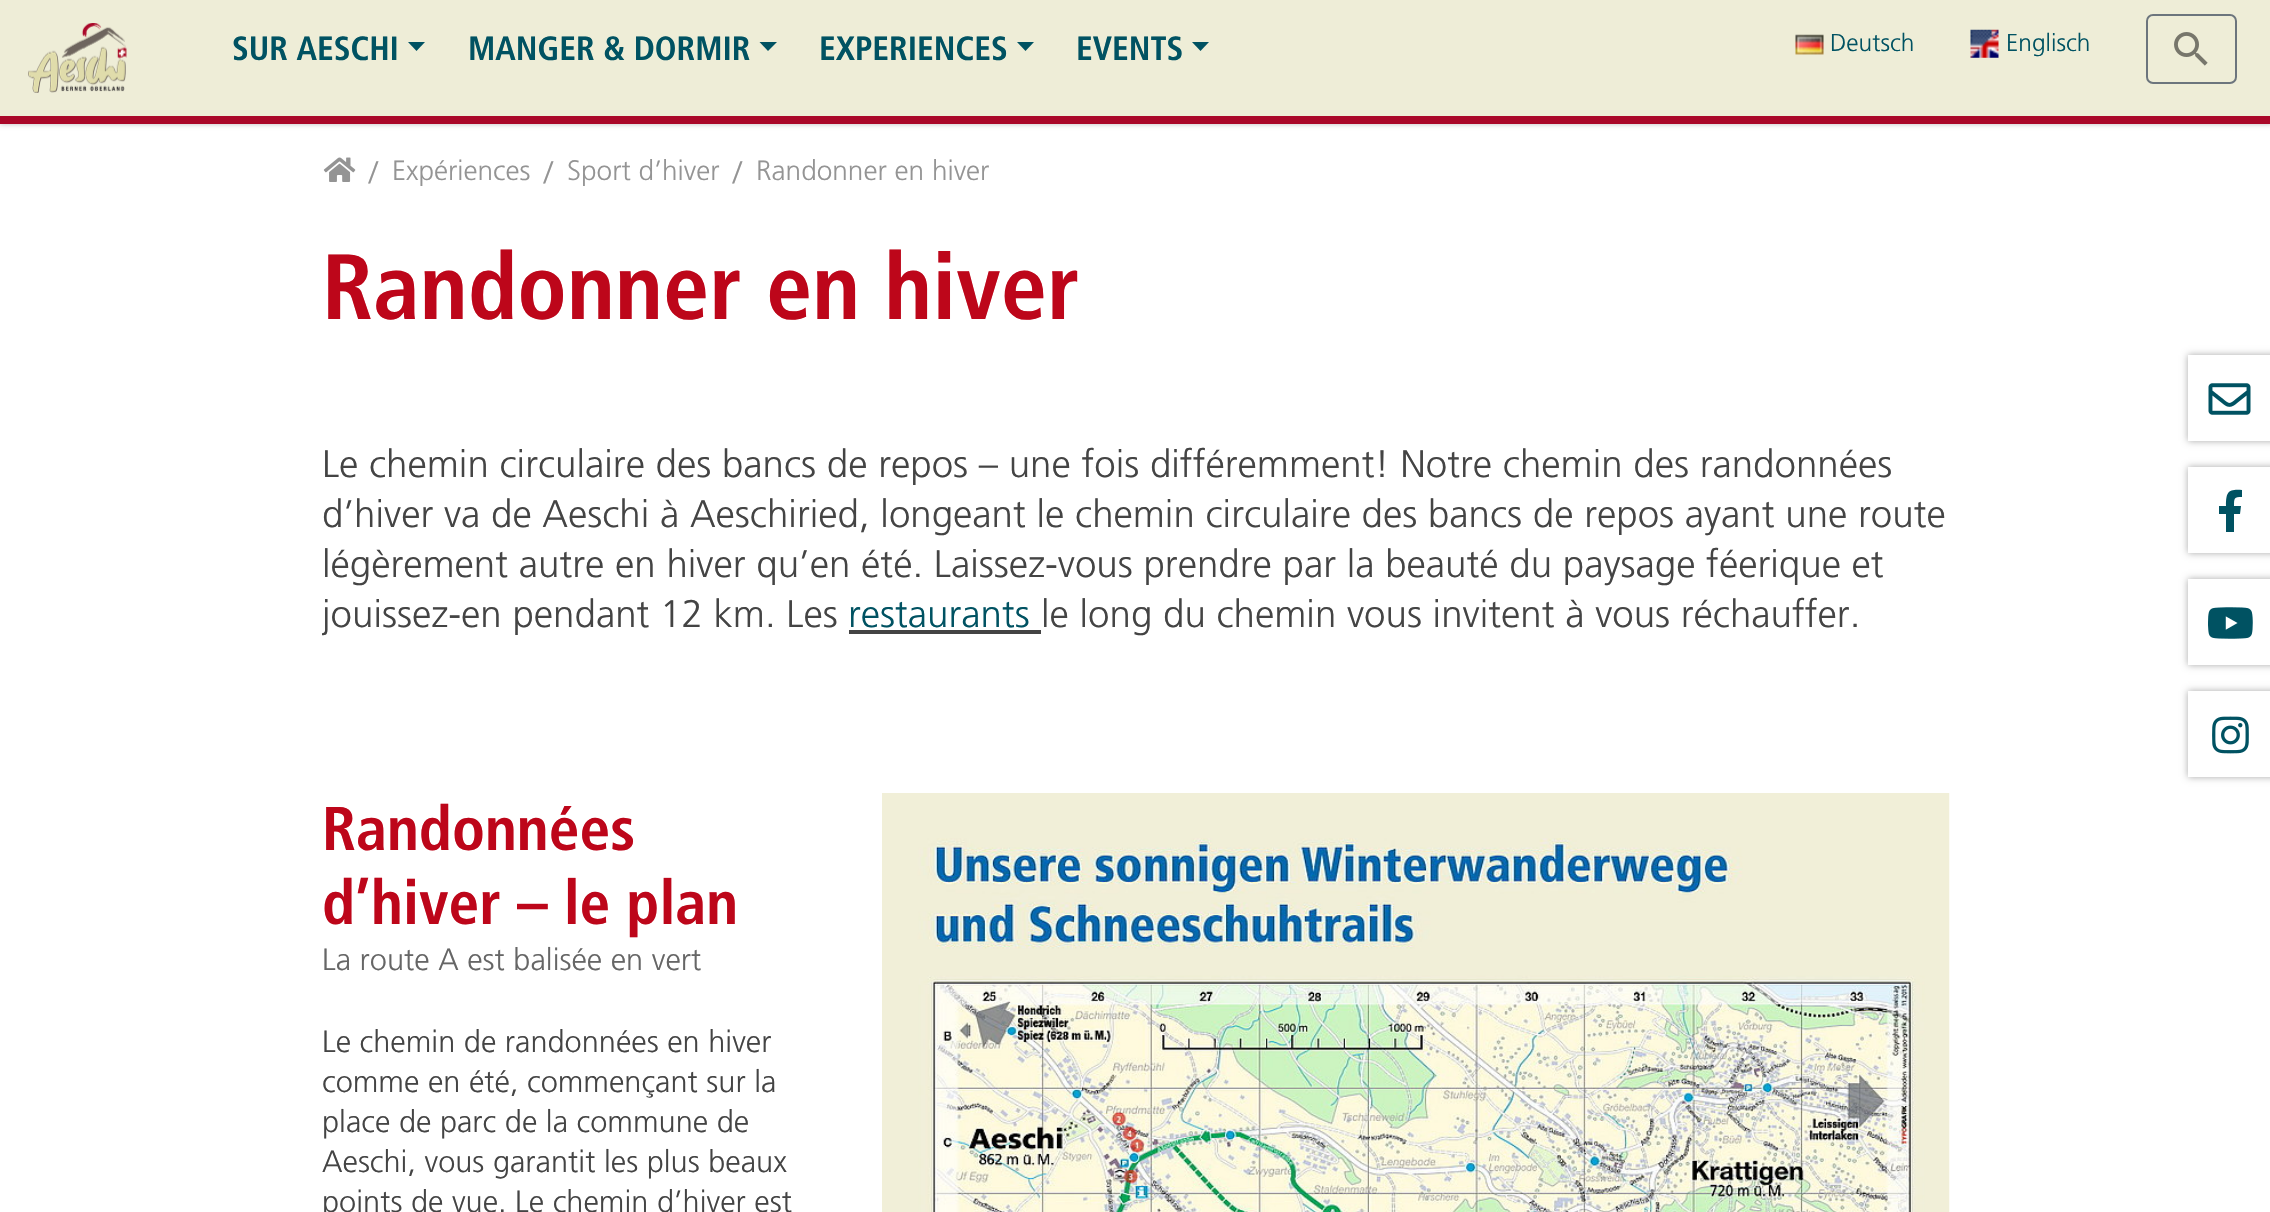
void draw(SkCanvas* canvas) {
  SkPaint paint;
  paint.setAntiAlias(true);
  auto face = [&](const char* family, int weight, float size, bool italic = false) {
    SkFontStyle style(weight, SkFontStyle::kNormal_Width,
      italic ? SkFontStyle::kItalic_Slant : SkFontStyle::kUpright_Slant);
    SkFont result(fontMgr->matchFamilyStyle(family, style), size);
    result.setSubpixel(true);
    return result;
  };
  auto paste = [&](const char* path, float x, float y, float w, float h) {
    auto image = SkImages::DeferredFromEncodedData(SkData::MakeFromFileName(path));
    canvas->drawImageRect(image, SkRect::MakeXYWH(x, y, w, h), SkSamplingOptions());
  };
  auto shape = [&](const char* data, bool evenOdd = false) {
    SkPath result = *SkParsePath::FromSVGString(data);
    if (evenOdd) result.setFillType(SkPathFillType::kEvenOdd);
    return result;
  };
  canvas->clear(0xffffffff);
  paint.setColor(0xffbbbbbb);
  paint.setMaskFilter(SkMaskFilter::MakeBlur(kNormal_SkBlurStyle, 2.5f));
  canvas->drawRect(SkRect::MakeXYWH(0, 0, 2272, 124), paint);
  paint.setMaskFilter(nullptr);
  paint.setColor(0xffeeedd7);
  canvas->drawRect(SkRect::MakeXYWH(0, 0, 2270, 116), paint);
  paint.setColor(0xffaa0829);
  canvas->drawRect(SkRect::MakeXYWH(0, 116, 2270, 8), paint);
  paste("img/1.png", 28, 23, 99, 70);
  paint.setColor(0xff005262);
  canvas->drawPath(shape("M408 42H425L416.5 51Z"), paint);
  canvas->drawPath(shape("M759.5 42H777L768 51Z"), paint);
  canvas->drawPath(shape("M1017 42H1034L1025.5 51Z"), paint);
  canvas->drawPath(shape("M1192 42H1209L1200.5 51Z"), paint);
  paste("img/2.png", 1795, 34, 29, 21);
  paste("img/3.png", 1970, 29, 29, 29);
  paint.setStroke(true);
  paint.setStrokeWidth(2);
  paint.setColor(0xff6c757d);
  canvas->drawRoundRect(SkRect::MakeXYWH(2147, 15, 89, 68), 6, 6, paint);
  paste("img/4.png", 2174, 32, 34, 34);
  paste("img/5.png", 323, 157, 33, 25);
  paint.setStroke(false);
  paint.setColor(0xff444444);
  canvas->drawRect(SkRect::MakeXYWH(849, 630, 192, 4), paint);
  paste("img/6.png", 882, 793, 1068, 419);
  paint.setColor(0x57000000);
  paint.setMaskFilter(SkMaskFilter::MakeBlur(kNormal_SkBlurStyle, 3.5f));
  canvas->drawRect(SkRect::MakeXYWH(2188, 355, 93, 86), paint);
  paint.setMaskFilter(nullptr);
  paint.setColor(0xffffffff);
  canvas->drawRect(SkRect::MakeXYWH(2188, 355, 82, 86), paint);
  paste("img/7.png", 2208, 383, 43, 32);
  paint.setColor(0x57000000);
  paint.setMaskFilter(SkMaskFilter::MakeBlur(kNormal_SkBlurStyle, 3.5f));
  canvas->drawRect(SkRect::MakeXYWH(2188, 467, 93, 86), paint);
  paint.setMaskFilter(nullptr);
  paint.setColor(0xffffffff);
  canvas->drawRect(SkRect::MakeXYWH(2188, 467, 82, 86), paint);
  paint.setColor(0xff005262);
  canvas->drawPath(shape("M2240 514H2234V532H2226V514H2219V506H2226C2226 492 2228 489 2242 490V497C2234 497 2234 498 2234 506H2241Z"), paint);
  paint.setColor(0x57000000);
  paint.setMaskFilter(SkMaskFilter::MakeBlur(kNormal_SkBlurStyle, 3.5f));
  canvas->drawRect(SkRect::MakeXYWH(2188, 579, 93, 86), paint);
  paint.setMaskFilter(nullptr);
  paint.setColor(0xffffffff);
  canvas->drawRect(SkRect::MakeXYWH(2188, 579, 82, 86), paint);
  paste("img/8.png", 2208, 607, 45, 32);
  paint.setColor(0x57000000);
  paint.setMaskFilter(SkMaskFilter::MakeBlur(kNormal_SkBlurStyle, 3.5f));
  canvas->drawRect(SkRect::MakeXYWH(2188, 691, 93, 86), paint);
  paint.setMaskFilter(nullptr);
  paint.setColor(0xffffffff);
  canvas->drawRect(SkRect::MakeXYWH(2188, 691, 82, 86), paint);
  paste("img/9.png", 2212, 716, 37, 38);
  auto f0 = face("Frutiger", 700, 33.5f);
  paint.setColor(0xff005262);
  {
    const struct { const char* s; float x, y; } items[] = {
      {"SUR AESCHI", 232, 60},
      {"MANGER & DORMIR", 468, 60},
      {"EXPERIENCES", 819, 60},
      {"EVENTS", 1076, 60},
    };
    for (auto [s, x, y] : items) {
      canvas->drawString(s, x, y, f0, paint);
    }
  }
  auto f1 = face("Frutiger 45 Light", 300, 24.5f);
  canvas->drawString("Deutsch", 1830, 51, f1, paint);
  canvas->drawString("Englisch", 2006, 51, f1, paint);
  auto f2 = face("Frutiger 45 Light", 300, 30.75f);
  paint.setColor(0xff949494);
  canvas->drawString("/", 369, 183, f2, paint);
  auto f3 = face("Frutiger 45 Light", 300, 28);
  canvas->drawString("Expériences", 392, 180, f3, paint);
  canvas->drawString("/", 544, 183, f2, paint);
  canvas->drawString("Sport d’hiver", 567, 180, f3, paint);
  canvas->drawString("/", 733, 183, f2, paint);
  canvas->drawString("Randonner en hiver", 756, 180, f3, paint);
  auto f4 = face("Frutiger", 700, 92.5f);
  paint.setColor(0xffbd061a);
  canvas->drawString("Randonner en hiver", 322, 319, f4, paint);
  auto f5 = face("Frutiger 45 Light", 300, 38.5f);
  paint.setColor(0xff444444);
  {
    const struct { const char* s; float x, y; } items[] = {
      {"Le chemin circulaire des bancs de repos – une fois différemment! Notre chemin des randonnées", 322, 477},
      {"d’hiver va de Aeschi à Aeschiried, longeant le chemin circulaire des bancs de repos ayant une route", 322, 527},
      {"légèrement autre en hiver qu’en été. Laissez-vous prendre par la beauté du paysage féerique et", 322, 577},
    };
    for (auto [s, x, y] : items) {
      canvas->drawString(s, x, y, f5, paint);
    }
  }
  canvas->save();
  canvas->clipRect(SkRect::MakeXYWH(322, 231, 1628, 478));
  canvas->drawString("jouissez-en pendant 12 km. Les", 322, 627, f5, paint);
  canvas->restore();
  paint.setColor(0xff005262);
  canvas->drawString("restaurants", 848, 627, f5, paint);
  paint.setColor(0xff444444);
  canvas->drawString("le long du chemin vous invitent à vous réchauffer.", 1041, 627, f5, paint);
  auto f6 = face("Frutiger", 700, 61.5f);
  paint.setColor(0xffbd061a);
  canvas->drawString("Randonnées", 322, 850, f6, paint);
  canvas->drawString("d’hiver – le plan", 322, 924, f6, paint);
  paint.setColor(0xff666666);
  canvas->drawString("La route A est balisée en vert", 322, 970, f2, paint);
  paint.setColor(0xff444444);
  {
    const struct { const char* s; float x, y; } items[] = {
      {"Le chemin de randonnées en hiver", 322, 1052},
      {"comme en été, commençant sur la", 322, 1092},
      {"place de parc de la commune de", 322, 1132},
      {"Aeschi, vous garantit les plus beaux", 322, 1172},
      {"points de vue. Le chemin d’hiver est", 322, 1212},
    };
    for (auto [s, x, y] : items) {
      canvas->drawString(s, x, y, f2, paint);
    }
  }
}
